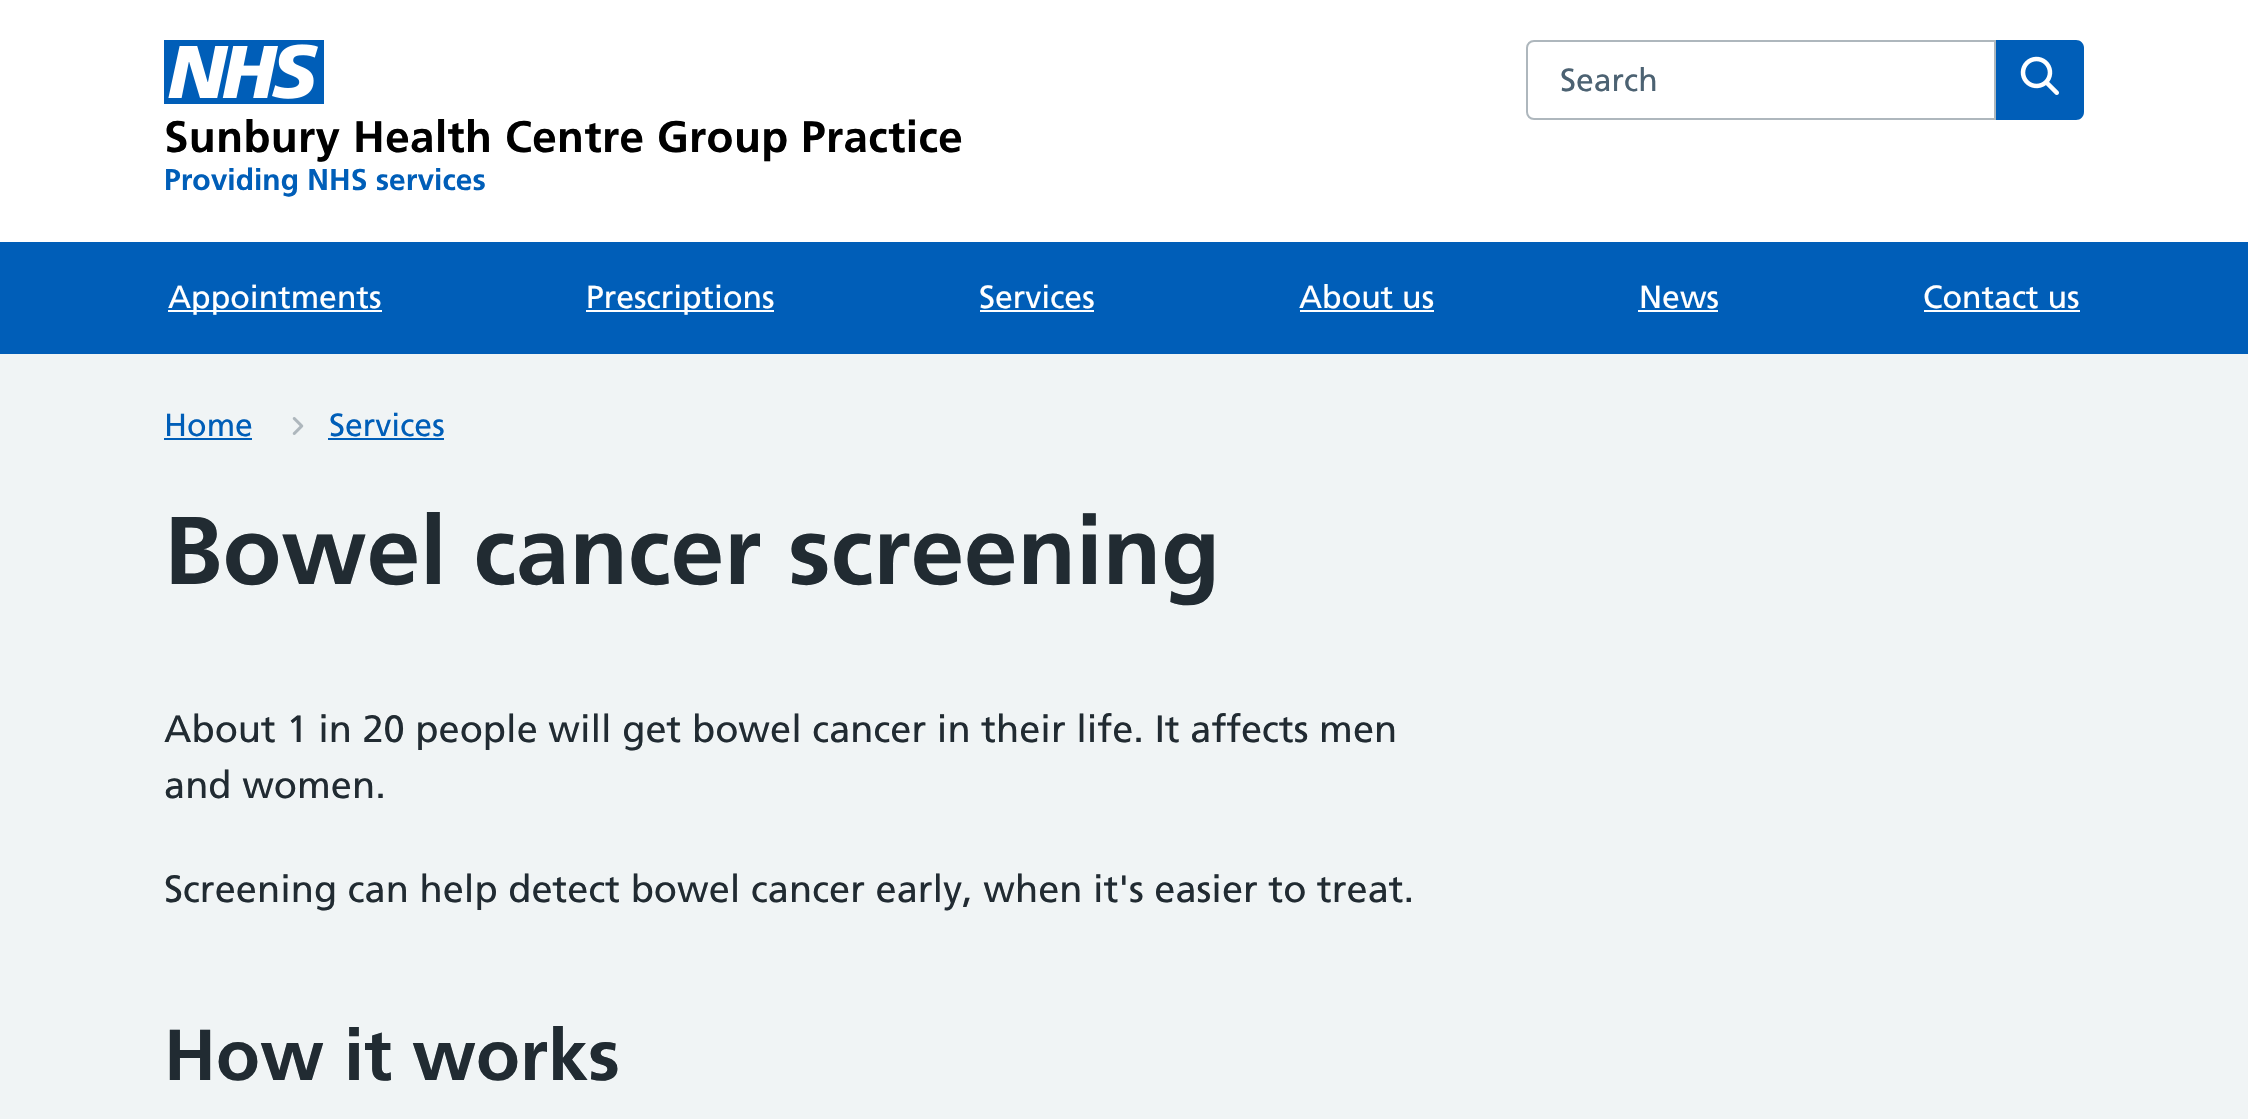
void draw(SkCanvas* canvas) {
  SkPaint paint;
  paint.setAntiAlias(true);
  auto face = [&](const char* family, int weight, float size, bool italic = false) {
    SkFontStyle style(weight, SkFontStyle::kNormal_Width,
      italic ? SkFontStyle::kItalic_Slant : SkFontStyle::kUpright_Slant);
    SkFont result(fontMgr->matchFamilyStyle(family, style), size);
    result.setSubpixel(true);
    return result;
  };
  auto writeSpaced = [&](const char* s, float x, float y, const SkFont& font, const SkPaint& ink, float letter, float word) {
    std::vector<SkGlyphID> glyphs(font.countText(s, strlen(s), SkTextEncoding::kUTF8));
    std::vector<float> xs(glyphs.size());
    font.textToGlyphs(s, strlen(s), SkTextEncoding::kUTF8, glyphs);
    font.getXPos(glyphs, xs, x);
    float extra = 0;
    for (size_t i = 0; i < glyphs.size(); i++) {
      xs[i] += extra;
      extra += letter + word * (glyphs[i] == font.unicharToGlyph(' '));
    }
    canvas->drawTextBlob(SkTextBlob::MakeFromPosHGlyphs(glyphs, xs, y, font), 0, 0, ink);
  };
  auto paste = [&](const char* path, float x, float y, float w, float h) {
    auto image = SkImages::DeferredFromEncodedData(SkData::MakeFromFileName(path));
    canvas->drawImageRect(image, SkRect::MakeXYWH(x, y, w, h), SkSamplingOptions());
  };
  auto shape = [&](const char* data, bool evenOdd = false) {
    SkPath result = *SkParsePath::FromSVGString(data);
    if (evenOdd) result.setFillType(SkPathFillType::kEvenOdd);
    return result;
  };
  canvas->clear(0xfff0f4f5);
  paint.setColor(0xffffffff);
  canvas->drawRect(SkRect::MakeXYWH(0, 0, 2248, 242), paint);
  paint.setStroke(true);
  paint.setStrokeWidth(2);
  paint.setColor(0xffaeb7bd);
  canvas->drawPath(shape("M1534 41H1995V119H1534C1530 119 1527 116 1527 112V48C1527 44 1530 41 1534 41Z"), paint);
  paint.setStroke(false);
  paint.setColor(0xff005eb8);
  canvas->drawPath(shape("M1996 40H2076C2080.5 40 2084 43.5 2084 48V112C2084 116.5 2080.5 120 2076 120H1996Z"), paint);
  paste("img/1.png", 2020, 56, 39, 39);
  paste("img/2.png", 164, 40, 160, 64);
  {
    const struct { float x, y, w, h; SkColor color; } items[] = {
      {0, 242, 2248, 112, 0xff005eb8},
      {168, 310, 214, 2, 0xffffffff},
      {586, 310, 188, 2, 0xffffffff},
      {980, 310, 114, 2, 0xffffffff},
      {1300, 310, 134, 2, 0xffffffff},
      {1638, 310, 80, 2, 0xffffffff},
      {1924, 310, 156, 2, 0xffffffff},
      {164, 438, 88, 2, 0xff005eb8},
    };
    for (auto [x, y, w, h, color] : items) {
      paint.setColor(color);
      canvas->drawRect(SkRect::MakeXYWH(x, y, w, h), paint);
    }
  }
  paste("img/3.png", 292, 417, 12, 18);
  canvas->drawRect(SkRect::MakeXYWH(328, 438, 116, 2), paint);
  auto f0 = face("Frutiger", 400, 32);
  paint.setColor(0xff4c6272);
  canvas->drawString("Search", 1560, 91, f0, paint);
  auto f1 = face("Frutiger", 700, 44);
  paint.setColor(0xff000000);
  writeSpaced("Sunbury Health Centre Group Practice", 164, 152, f1, paint, 0.4f, 0);
  auto f2 = face("Frutiger", 700, 30);
  paint.setColor(0xff005eb8);
  canvas->drawString("Providing NHS services", 164, 190, f2, paint);
  paint.setColor(0xffffffff);
  {
    const struct { const char* s; float x, y; } items[] = {
      {"Appointments", 168, 308},
      {"Prescriptions", 586, 308},
      {"Services", 979, 308},
      {"About us", 1299, 308},
      {"News", 1639, 308},
      {"Contact us", 1923, 308},
    };
    for (auto [s, x, y] : items) {
      canvas->drawString(s, x, y, f0, paint);
    }
  }
  paint.setColor(0xff005eb8);
  canvas->drawString("Home", 164, 436, f0, paint);
  canvas->drawString("Services", 329, 436, f0, paint);
  auto f3 = face("Frutiger", 700, 96);
  paint.setColor(0xff212b32);
  canvas->drawString("Bowel cancer screening", 164, 584, f3, paint);
  auto f4 = face("Frutiger", 400, 38);
  {
    const struct { const char* s; float x, y; } items[] = {
      {"About 1 in 20 people will get bowel cancer in their life. It affects men", 164, 742},
      {"and women.", 164, 798},
      {"Screening can help detect bowel cancer early, when it's easier to treat.", 164, 902},
    };
    for (auto [s, x, y] : items) {
      canvas->drawString(s, x, y, f4, paint);
    }
  }
  auto f5 = face("Frutiger", 700, 72);
  canvas->drawString("How it works", 164, 1080, f5, paint);
}
